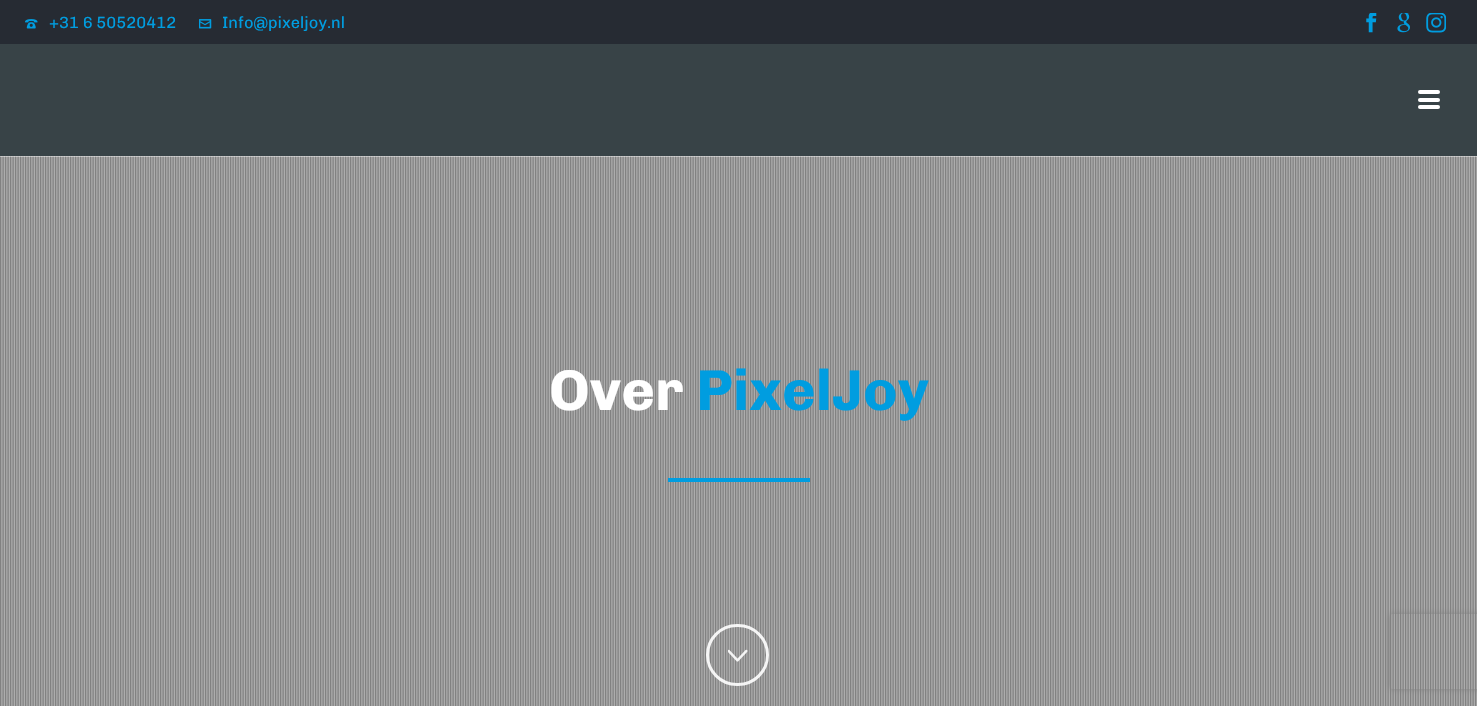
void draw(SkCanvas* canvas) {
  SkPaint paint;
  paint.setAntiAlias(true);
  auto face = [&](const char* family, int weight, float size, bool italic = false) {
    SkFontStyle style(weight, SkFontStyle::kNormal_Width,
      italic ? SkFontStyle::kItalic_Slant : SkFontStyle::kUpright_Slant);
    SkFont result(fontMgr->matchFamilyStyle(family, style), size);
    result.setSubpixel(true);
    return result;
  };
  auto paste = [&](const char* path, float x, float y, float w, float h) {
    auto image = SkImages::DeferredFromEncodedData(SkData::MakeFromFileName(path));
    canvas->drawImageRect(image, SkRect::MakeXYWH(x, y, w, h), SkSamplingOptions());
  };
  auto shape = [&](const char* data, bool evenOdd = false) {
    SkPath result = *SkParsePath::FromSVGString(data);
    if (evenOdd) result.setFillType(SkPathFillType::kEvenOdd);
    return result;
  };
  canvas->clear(0xffffffff);
  paint.setColor(0xff262b33);
  canvas->drawRect(SkRect::MakeXYWH(0, 0, 1477, 44), paint);
  paste("img/1.png", 25, 19, 13, 10);
  paste("img/2.png", 199, 19, 13, 10);
  paste("img/3.png", 1366, 13, 11, 20);
  paste("img/4.png", 1397, 13, 13, 20);
  paste("img/5.png", 1426, 13, 20, 20);
  paint.setColor(0xff384347);
  canvas->drawRect(SkRect::MakeXYWH(0, 44, 1477, 112), paint);
  paint.setColor(0xffffffff);
  canvas->drawRoundRect(SkRect::MakeXYWH(1418, 90, 22, 4), 2, 2, paint);
  canvas->drawRoundRect(SkRect::MakeXYWH(1418, 98, 22, 4), 2, 2, paint);
  canvas->drawRoundRect(SkRect::MakeXYWH(1418, 105, 22, 4), 2, 2, paint);
  paste("img/6.png", 0, 156, 1477, 550);
  paint.setColor(0xff009de0);
  canvas->drawRect(SkRect::MakeXYWH(668, 478, 142, 4), paint);
  paint.setStroke(true);
  paint.setStrokeWidth(3);
  paint.setColor(0xe6ffffff);
  canvas->drawRoundRect(SkRect::MakeXYWH(707.5f, 625.5f, 60, 59), 29.5f, 29.5f, paint);
  paste("img/7.png", 728, 649, 20, 13);
  canvas->save();
  canvas->clipPath(shape("M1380 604H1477V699H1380ZM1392.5 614H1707.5C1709 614 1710 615 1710 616.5V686.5C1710 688 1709 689 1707.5 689H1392.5C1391 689 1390 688 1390 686.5V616.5C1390 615 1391 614 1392.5 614Z", true), true);
  paint.setStroke(false);
  paint.setColor(0xff808080);
  paint.setMaskFilter(SkMaskFilter::MakeBlur(kNormal_SkBlurStyle, 3));
  canvas->drawRoundRect(SkRect::MakeXYWH(1390, 614, 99, 75), 2.5f, 2.5f, paint);
  paint.setMaskFilter(nullptr);
  canvas->restore();
  auto f0 = face("Chivo", 400, 16.25f);
  paint.setColor(0xff009de0);
  canvas->drawString("+31 6 50520412", 49, 28, f0, paint);
  canvas->drawString("Info@pixeljoy.nl", 222, 28, f0, paint);
  auto f1 = face("Chivo", 700, 57.5f);
  paint.setColor(0xffffffff);
  canvas->drawString("Over", 549, 410, f1, paint);
  paint.setColor(0xff009de0);
  canvas->drawString("PixelJoy", 696, 410, f1, paint);
}
